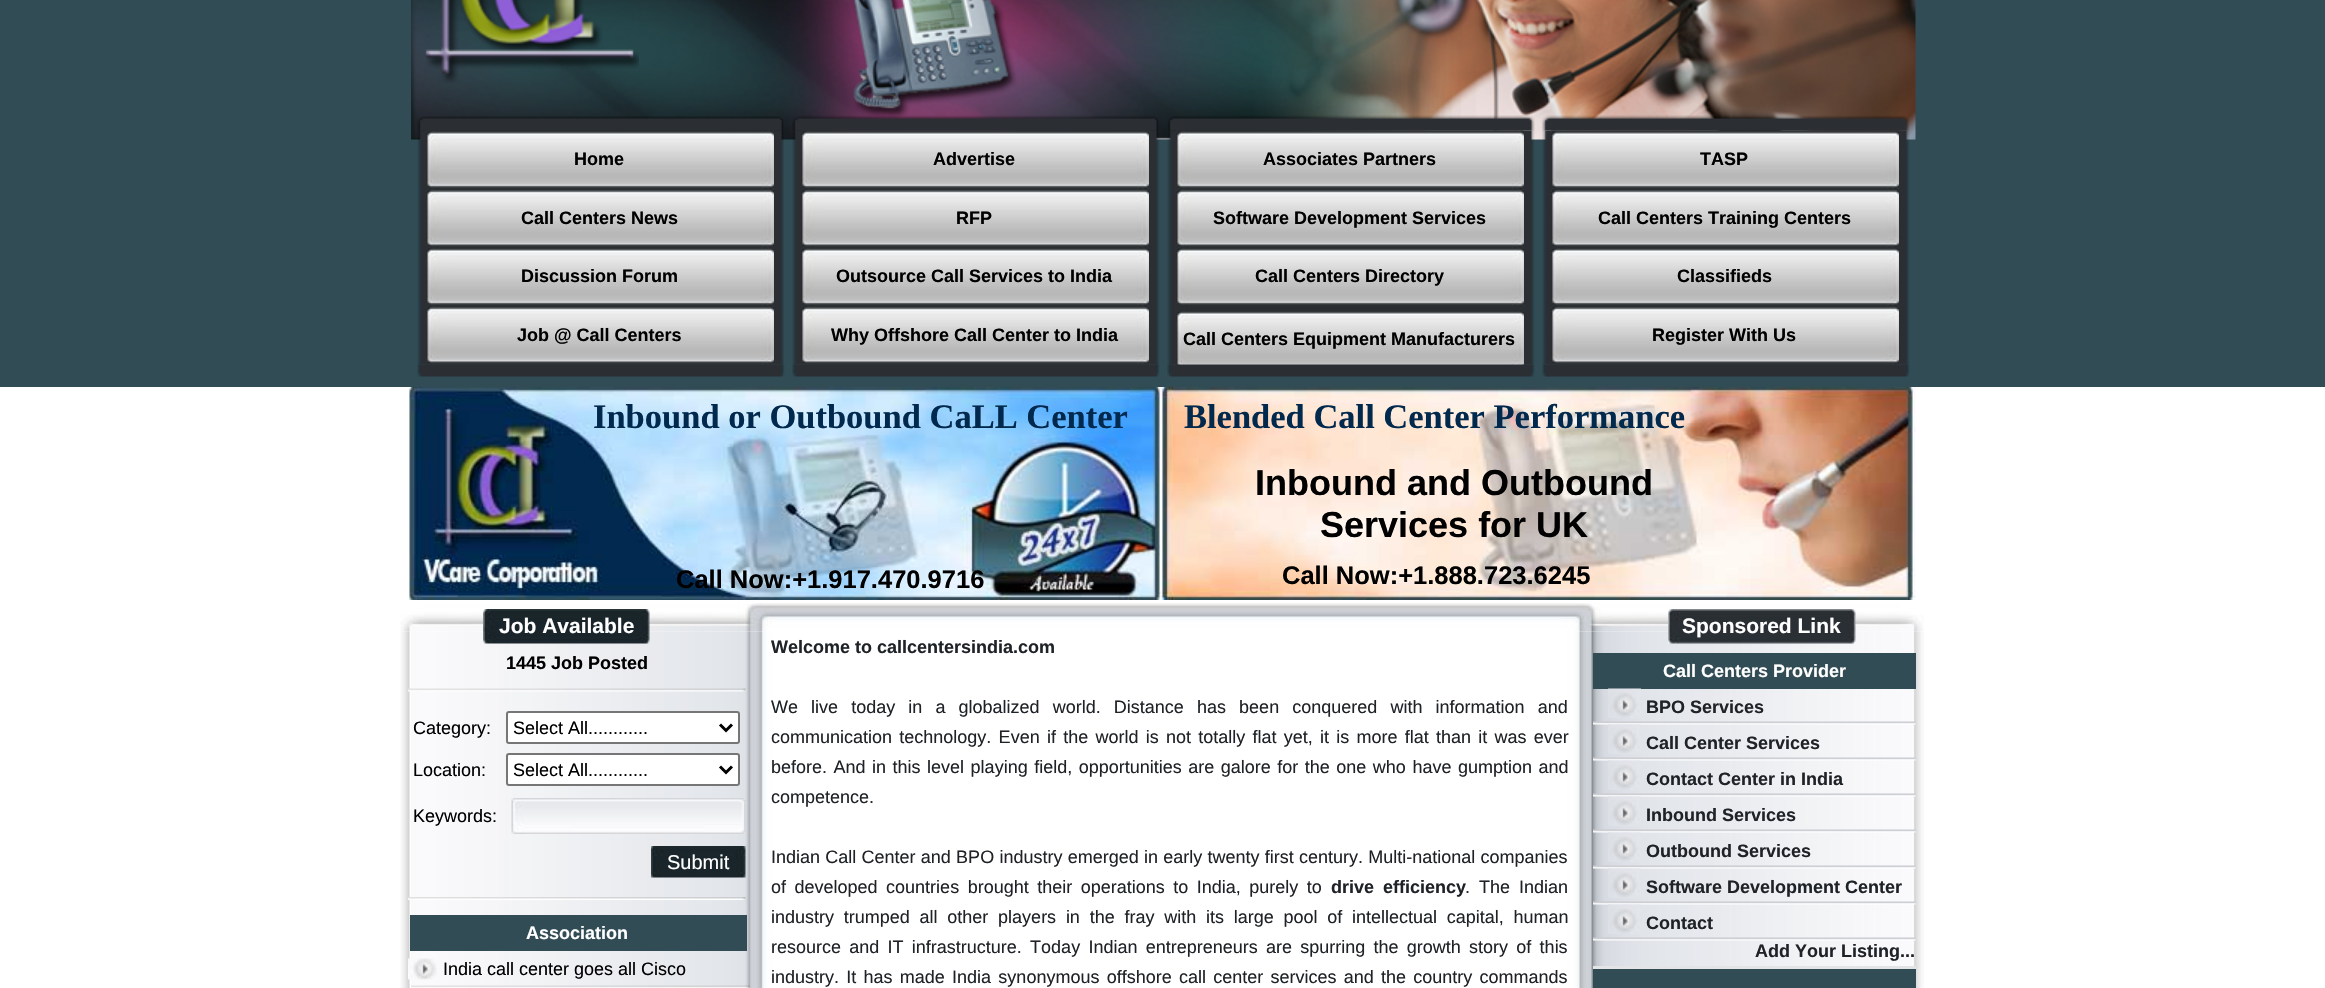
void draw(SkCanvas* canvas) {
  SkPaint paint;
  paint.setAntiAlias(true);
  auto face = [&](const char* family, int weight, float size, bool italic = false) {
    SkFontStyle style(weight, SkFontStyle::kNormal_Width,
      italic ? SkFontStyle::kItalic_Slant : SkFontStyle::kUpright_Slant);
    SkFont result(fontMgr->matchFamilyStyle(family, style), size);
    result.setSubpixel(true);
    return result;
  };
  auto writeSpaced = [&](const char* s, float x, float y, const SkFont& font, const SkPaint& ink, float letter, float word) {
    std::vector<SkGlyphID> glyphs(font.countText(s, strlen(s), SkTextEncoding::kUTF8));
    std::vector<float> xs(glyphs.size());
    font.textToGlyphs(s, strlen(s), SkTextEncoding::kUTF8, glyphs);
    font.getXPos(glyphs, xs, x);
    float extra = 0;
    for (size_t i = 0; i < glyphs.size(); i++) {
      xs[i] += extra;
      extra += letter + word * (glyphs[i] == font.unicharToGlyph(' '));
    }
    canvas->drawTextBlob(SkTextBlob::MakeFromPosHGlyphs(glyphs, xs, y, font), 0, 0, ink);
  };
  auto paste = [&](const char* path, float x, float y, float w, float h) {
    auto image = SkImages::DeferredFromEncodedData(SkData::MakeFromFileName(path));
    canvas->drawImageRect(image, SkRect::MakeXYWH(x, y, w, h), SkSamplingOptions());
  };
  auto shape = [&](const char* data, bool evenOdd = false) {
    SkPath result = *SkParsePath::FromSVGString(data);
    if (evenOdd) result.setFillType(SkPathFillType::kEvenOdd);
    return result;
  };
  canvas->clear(0xffffffff);
  paint.setColor(0xff324c55);
  canvas->drawRect(SkRect::MakeXYWH(0, 0, 2325, 387), paint);
  paste("img/1.png", 411, 0, 1505, 140);
  paste("img/2.png", 425, 0, 214, 83);
  paste("img/3.png", 417, 116, 367, 15);
  paste("img/4.png", 417, 130, 367, 235);
  paste("img/5.png", 426, 130, 348, 59);
  paste("img/6.png", 426, 189, 348, 59);
  paste("img/7.png", 426, 248, 348, 58);
  paste("img/8.png", 426, 306, 348, 59);
  paste("img/9.png", 417, 364, 368, 13);
  paste("img/10.png", 792, 115, 367, 16);
  paste("img/11.png", 792, 130, 368, 235);
  paste("img/12.png", 801, 130, 348, 59);
  paste("img/13.png", 801, 189, 348, 59);
  paste("img/14.png", 801, 248, 348, 58);
  paste("img/15.png", 801, 306, 348, 59);
  paste("img/16.png", 792, 364, 368, 13);
  paste("img/17.png", 1168, 115, 367, 16);
  paste("img/18.png", 1167, 130, 368, 235);
  paste("img/19.png", 1176, 130, 348, 59);
  paste("img/20.png", 1176, 189, 348, 59);
  paste("img/21.png", 1176, 248, 348, 58);
  paste("img/22.png", 1176, 310, 348, 55);
  paste("img/23.png", 1167, 364, 368, 13);
  paste("img/24.png", 1542, 115, 368, 16);
  paste("img/25.png", 1542, 130, 368, 235);
  paste("img/26.png", 1551, 130, 348, 59);
  paste("img/13.png", 1551, 189, 348, 59);
  paste("img/14.png", 1551, 248, 348, 58);
  paste("img/15.png", 1551, 306, 348, 59);
  paste("img/16.png", 1542, 364, 368, 13);
  paste("img/27.png", 409, 387, 754, 213);
  paste("img/28.png", 1162, 387, 754, 213);
  paste("img/29.png", 400, 603, 1524, 29);
  paste("img/30.png", 400, 631, 1524, 357);
  paste("img/31.png", 483, 609, 167, 35);
  paste("img/32.png", 408, 688, 338, 4);
  paint.setColor(0xffffffff);
  canvas->drawRoundRect(SkRect::MakeXYWH(507, 712, 232, 31), 2, 2, paint);
  paint.setStroke(true);
  paint.setStrokeWidth(2);
  paint.setColor(0xff767676);
  canvas->drawRoundRect(SkRect::MakeXYWH(507, 712, 232, 31), 2, 2, paint);
  paint.setStrokeWidth(3);
  paint.setColor(0xff000000);
  canvas->drawPath(shape("M720 724.5L726 730.5L732 724.5"), paint);
  paint.setStroke(false);
  paint.setColor(0xffffffff);
  canvas->drawRoundRect(SkRect::MakeXYWH(507, 754, 232, 31), 2, 2, paint);
  paint.setStroke(true);
  paint.setStrokeWidth(2);
  paint.setColor(0xff767676);
  canvas->drawRoundRect(SkRect::MakeXYWH(507, 754, 232, 31), 2, 2, paint);
  paint.setStrokeWidth(3);
  paint.setColor(0xff000000);
  canvas->drawPath(shape("M720 766.5L726 772.5L732 766.5"), paint);
  paste("img/33.png", 511, 798, 235, 36);
  paste("img/34.png", 651, 846, 95, 32);
  paste("img/35.png", 408, 897, 338, 3);
  paint.setStroke(false);
  paint.setColor(0xff324c55);
  canvas->drawRect(SkRect::MakeXYWH(410, 915, 337, 36), paint);
  paste("img/36.png", 411, 985, 339, 3);
  paste("img/37.png", 408, 958, 29, 22);
  paste("img/38.png", 1668, 609, 188, 35);
  canvas->drawRect(SkRect::MakeXYWH(1593, 653, 323, 36), paint);
  paste("img/39.png", 1608, 688, 33, 30);
  paste("img/40.png", 1593, 721, 323, 4);
  paste("img/41.png", 1608, 724, 33, 30);
  paste("img/40.png", 1593, 757, 323, 4);
  paste("img/41.png", 1608, 760, 33, 30);
  paste("img/40.png", 1593, 793, 323, 4);
  paste("img/41.png", 1608, 796, 33, 30);
  paste("img/40.png", 1593, 829, 323, 4);
  paste("img/41.png", 1608, 832, 33, 30);
  paste("img/40.png", 1593, 865, 323, 4);
  paste("img/41.png", 1608, 868, 33, 30);
  paste("img/40.png", 1593, 901, 323, 4);
  paste("img/41.png", 1608, 904, 33, 30);
  paste("img/40.png", 1593, 937, 323, 4);
  paint.setColor(0xffe3e4e6);
  canvas->drawRect(SkRect::MakeXYWH(1593, 966, 323, 3), paint);
  paint.setColor(0xff324c55);
  canvas->drawRect(SkRect::MakeXYWH(1593, 969, 323, 19), paint);
  auto f0 = face("Liberation Sans", 700, 18);
  paint.setColor(0xff000000);
  {
    const struct { const char* s; float x, y; } items[] = {
      {"Home", 574, 165},
      {"Call Centers News", 521, 224},
      {"Discussion Forum", 521, 282},
      {"Job @ Call Centers", 517, 341},
      {"Advertise", 933, 165},
      {"RFP", 956, 224},
      {"Outsource Call Services to India", 836, 282},
      {"Why Offshore Call Center to India", 831, 341},
      {"Associates Partners", 1263, 165},
      {"Software Development Services", 1213, 224},
      {"Call Centers Directory", 1255, 282},
      {"Call Centers Equipment Manufacturers", 1183, 345},
      {"TASP", 1700, 165},
      {"Call Centers Training Centers", 1598, 224},
      {"Classifieds", 1677, 282},
      {"Register With Us", 1652, 341},
    };
    for (auto [s, x, y] : items) {
      canvas->drawString(s, x, y, f0, paint);
    }
  }
  auto f1 = face("Liberation Serif", 700, 34.5f);
  paint.setColor(0xff01294e);
  canvas->drawString("Inbound or Outbound CaLL Center", 593, 428, f1, paint);
  auto f2 = face("Liberation Sans", 700, 25.5f);
  paint.setColor(0xff000000);
  canvas->drawString("Call Now:+1.917.470.9716", 676, 588, f2, paint);
  paint.setColor(0xff01294e);
  canvas->drawString("Blended Call Center Performance", 1184, 428, f1, paint);
  auto f3 = face("Liberation Sans", 700, 36);
  paint.setColor(0xff000000);
  canvas->drawString("Inbound and Outbound", 1255, 495, f3, paint);
  canvas->drawString("Services for UK", 1320, 537, f3, paint);
  canvas->drawString("Call Now:+1.888.723.6245", 1282, 584, f2, paint);
  auto f4 = face("Liberation Sans", 700, 21);
  paint.setColor(0xffffffff);
  canvas->drawString("Job Available", 499, 633, f4, paint);
  paint.setColor(0xff000000);
  canvas->drawString("1445 Job Posted", 506, 669, f0, paint);
  auto f5 = face("Liberation Sans", 400, 18);
  {
    const struct { const char* s; float x, y; } items[] = {
      {"Category:", 413, 734},
      {"Select All............", 513, 734},
      {"Location:", 413, 776},
      {"Select All............", 513, 776},
      {"Keywords:", 413, 822},
    };
    for (auto [s, x, y] : items) {
      canvas->drawString(s, x, y, f5, paint);
    }
  }
  auto f6 = face("Liberation Sans", 400, 20);
  paint.setColor(0xffffffff);
  canvas->drawString("Submit", 667, 869, f6, paint);
  canvas->drawString("Association", 526, 939, f0, paint);
  paint.setColor(0xff000000);
  canvas->drawString("India call center goes all Cisco", 443, 975, f5, paint);
  paint.setColor(0xff1f2327);
  canvas->drawString("Welcome to callcentersindia.com", 771, 653, f0, paint);
  writeSpaced("We live today in a globalized world. Distance has been conquered with information and", 771, 713, f5, paint, 0, 8.1f);
  writeSpaced("communication technology. Even if the world is not totally flat yet, it is more flat than it was ever", 771, 743, f5, paint, 0, 2.25f);
  writeSpaced("before. And in this level playing field, opportunities are galore for the one who have gumption and", 771, 773, f5, paint, 0, 1.5f);
  canvas->drawString("competence.", 771, 803, f5, paint);
  writeSpaced("Indian Call Center and BPO industry emerged in early twenty first century. Multi-national companies", 771, 863, f5, paint, 0, 0.25f);
  writeSpaced("of developed countries brought their operations to India, purely to", 771, 893, f5, paint, 0, 3.5f);
  writeSpaced("drive efficiency", 1331, 893, f0, paint, 0, 4);
  canvas->drawString(".", 1465, 893, f5, paint);
  writeSpaced("The Indian", 1479, 893, f5, paint, 0, 4);
  writeSpaced("industry trumped all other players in the fray with its large pool of intellectual capital, human", 771, 923, f5, paint, 0, 4.75f);
  writeSpaced("resource and IT infrastructure. Today Indian entrepreneurs are spurring the growth story of this", 771, 953, f5, paint, 0, 3.25f);
  writeSpaced("industry. It has made India synonymous offshore call center services and the country commands", 771, 983, f5, paint, 0, 2.25f);
  paint.setColor(0xffffffff);
  canvas->drawString("Sponsored Link", 1682, 633, f4, paint);
  canvas->drawString("Call Centers Provider", 1663, 677, f0, paint);
  paint.setColor(0xff1f2327);
  {
    const struct { const char* s; float x, y; } items[] = {
      {"BPO Services", 1646, 713},
      {"Call Center Services", 1646, 749},
      {"Contact Center in India", 1646, 785},
      {"Inbound Services", 1646, 821},
      {"Outbound Services", 1646, 857},
      {"Software Development Center", 1646, 893},
      {"Contact", 1646, 929},
      {"Add Your Listing...", 1755, 957},
    };
    for (auto [s, x, y] : items) {
      canvas->drawString(s, x, y, f0, paint);
    }
  }
}
